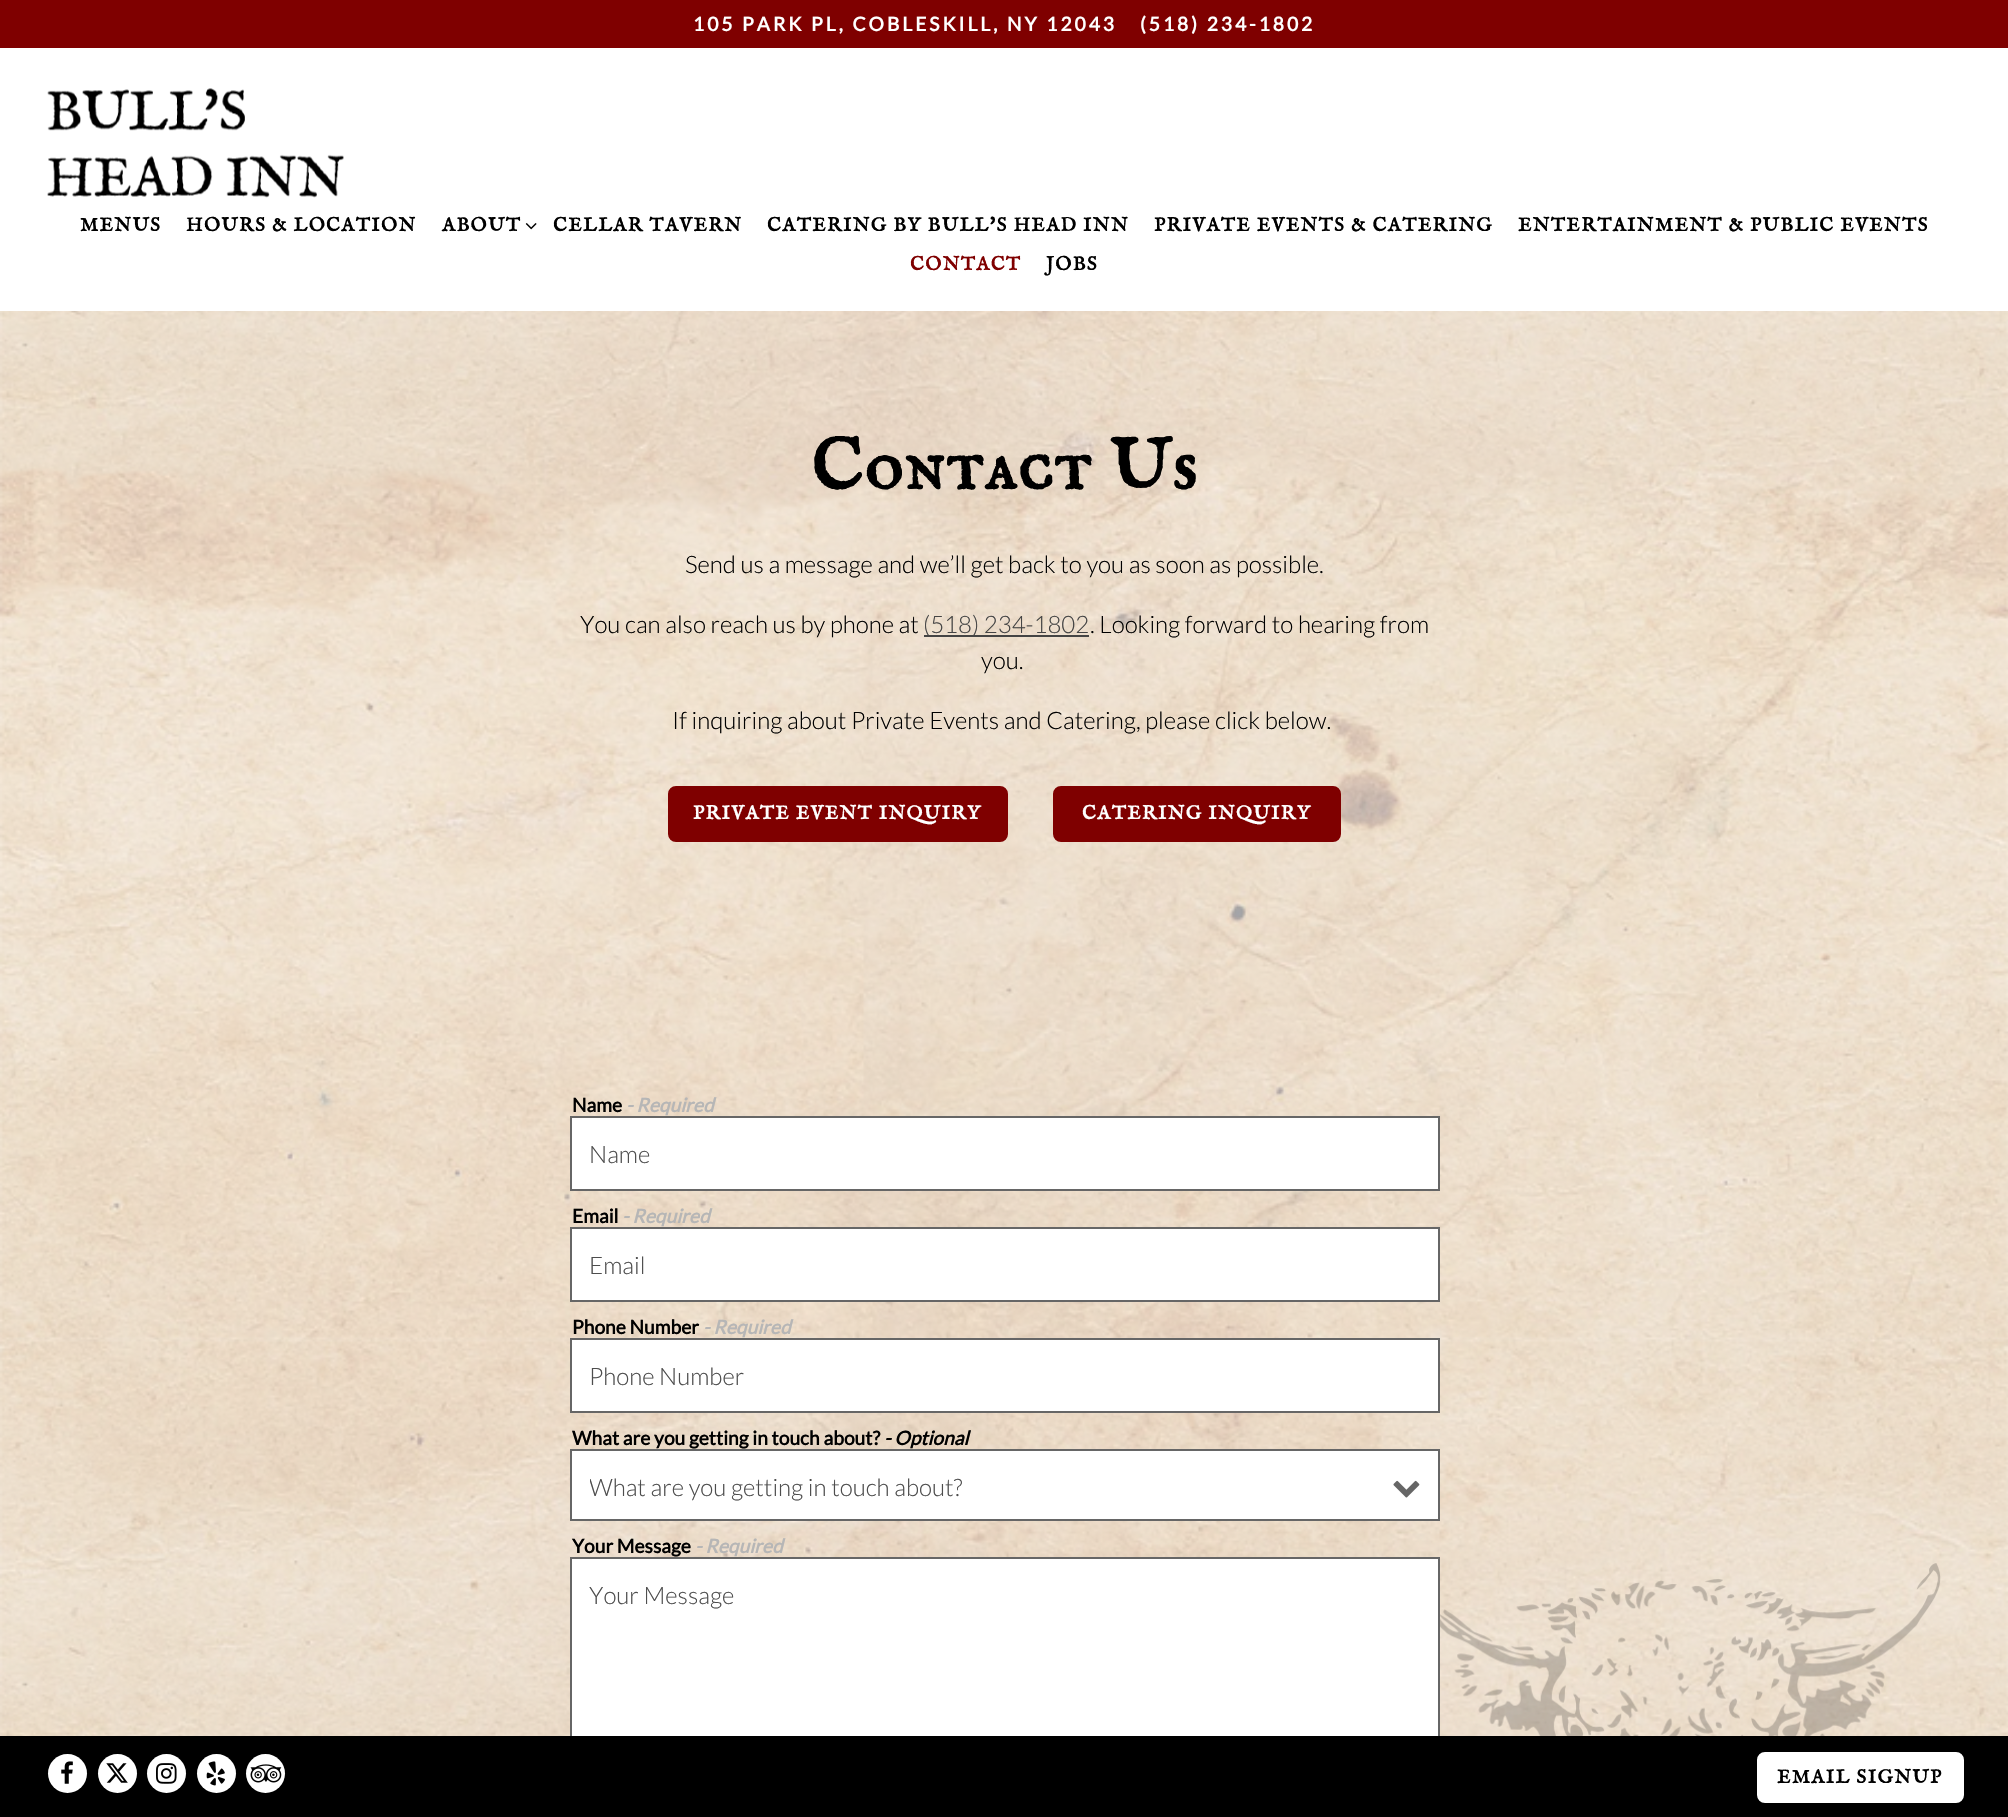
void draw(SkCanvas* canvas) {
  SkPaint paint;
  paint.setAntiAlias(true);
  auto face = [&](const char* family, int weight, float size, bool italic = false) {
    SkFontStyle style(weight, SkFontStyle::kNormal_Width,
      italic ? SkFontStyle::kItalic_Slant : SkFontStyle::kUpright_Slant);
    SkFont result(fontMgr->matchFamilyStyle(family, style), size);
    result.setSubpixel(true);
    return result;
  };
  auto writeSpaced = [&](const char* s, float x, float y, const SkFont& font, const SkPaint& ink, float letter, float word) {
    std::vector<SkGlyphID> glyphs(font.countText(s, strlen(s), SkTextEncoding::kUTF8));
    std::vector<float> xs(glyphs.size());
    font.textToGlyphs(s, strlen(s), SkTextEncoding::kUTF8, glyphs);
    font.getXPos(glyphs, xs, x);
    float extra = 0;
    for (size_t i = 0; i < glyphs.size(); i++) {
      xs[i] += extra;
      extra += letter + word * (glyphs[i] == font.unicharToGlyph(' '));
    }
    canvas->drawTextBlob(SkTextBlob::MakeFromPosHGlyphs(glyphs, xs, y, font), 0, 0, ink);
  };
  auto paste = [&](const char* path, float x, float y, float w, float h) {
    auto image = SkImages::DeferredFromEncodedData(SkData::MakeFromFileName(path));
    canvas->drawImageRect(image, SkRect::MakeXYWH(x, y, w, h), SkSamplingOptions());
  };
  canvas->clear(0xffffffff);
  paste("img/1.png", 0, 311, 2008, 1425);
  paint.setColor(0xff7f0000);
  canvas->drawRect(SkRect::MakeXYWH(0, 0, 2008, 48), paint);
  paste("img/2.png", 47, 88, 297, 110);
  paste("img/3.png", 525, 223, 12, 7);
  paint.setColor(0xff444444);
  canvas->drawRect(SkRect::MakeXYWH(924, 635, 165, 2), paint);
  paint.setColor(0xff7f0000);
  canvas->drawRoundRect(SkRect::MakeXYWH(669, 787, 338, 54), 7, 7, paint);
  paint.setStroke(true);
  paint.setStrokeWidth(2);
  canvas->drawRoundRect(SkRect::MakeXYWH(669, 787, 338, 54), 7, 7, paint);
  paint.setStroke(false);
  canvas->drawRoundRect(SkRect::MakeXYWH(1054, 787, 286, 54), 7, 7, paint);
  paint.setStroke(true);
  canvas->drawRoundRect(SkRect::MakeXYWH(1054, 787, 286, 54), 7, 7, paint);
  paint.setStroke(false);
  paint.setColor(0xffffffff);
  canvas->drawRect(SkRect::MakeXYWH(571, 1117, 868, 73), paint);
  paint.setStroke(true);
  paint.setColor(0xff666666);
  canvas->drawRect(SkRect::MakeXYWH(571, 1117, 868, 73), paint);
  paint.setStroke(false);
  paint.setColor(0xffffffff);
  canvas->drawRect(SkRect::MakeXYWH(571, 1228, 868, 73), paint);
  paint.setStroke(true);
  paint.setColor(0xff666666);
  canvas->drawRect(SkRect::MakeXYWH(571, 1228, 868, 73), paint);
  paint.setStroke(false);
  paint.setColor(0xffffffff);
  canvas->drawRect(SkRect::MakeXYWH(571, 1339, 868, 73), paint);
  paint.setStroke(true);
  paint.setColor(0xff666666);
  canvas->drawRect(SkRect::MakeXYWH(571, 1339, 868, 73), paint);
  paint.setStroke(false);
  paint.setColor(0xffffffff);
  canvas->drawRect(SkRect::MakeXYWH(571, 1450, 868, 70), paint);
  paint.setStroke(true);
  paint.setColor(0xff666666);
  canvas->drawRect(SkRect::MakeXYWH(571, 1450, 868, 70), paint);
  paste("img/4.png", 1393, 1480, 27, 18);
  paint.setStroke(false);
  paint.setColor(0xffffffff);
  canvas->drawRect(SkRect::MakeXYWH(572, 1559, 866, 177), paint);
  paint.setStroke(true);
  paint.setColor(0xff666666);
  canvas->drawRect(SkRect::MakeXYWH(571, 1558, 868, 214), paint);
  paste("img/5.png", 1440, 1563, 501, 173);
  paint.setStroke(false);
  paint.setColor(0xff000000);
  canvas->drawRect(SkRect::MakeXYWH(0, 1736, 2008, 81), paint);
  paint.setColor(0xffffffff);
  canvas->drawCircle(67.5f, 1773.5f, 19.5f, paint);
  paste("img/6.png", 61, 1761, 12, 23);
  canvas->drawCircle(117.5f, 1773.5f, 19.5f, paint);
  paste("img/7.png", 106, 1763, 22, 20);
  canvas->drawCircle(166.5f, 1773.5f, 19.5f, paint);
  paste("img/8.png", 156, 1763, 21, 21);
  canvas->drawCircle(216.5f, 1773.5f, 19.5f, paint);
  paste("img/9.png", 206, 1761, 19, 25);
  canvas->drawCircle(265.5f, 1773.5f, 19.5f, paint);
  paste("img/10.png", 250, 1764, 32, 19);
  canvas->drawRoundRect(SkRect::MakeXYWH(1758, 1753, 205, 49), 7, 7, paint);
  paint.setStroke(true);
  canvas->drawRoundRect(SkRect::MakeXYWH(1758, 1753, 205, 49), 7, 7, paint);
  auto f0 = face("Lato", 700, 19.2f);
  paint.setStroke(false);
  writeSpaced("105 PARK PL, COBLESKILL, NY 12043", 693, 31, f0, paint, 3, 0);
  writeSpaced("(518) 234-1802", 1140, 31, f0, paint, 3, 0);
  auto f1 = face("IM FELL English SC", 700, 19.2f);
  paint.setColor(0xff000000);
  {
    const struct { const char* s; float x, y; } items[] = {
      {"MENUS", 80, 231},
      {"HOURS & LOCATION", 186, 231},
      {"ABOUT", 442, 231},
      {"CELLAR TAVERN", 553, 231},
      {"CATERING BY BULL'S HEAD INN", 767, 231},
      {"PRIVATE EVENTS & CATERING", 1154, 231},
      {"ENTERTAINMENT & PUBLIC EVENTS", 1518, 231},
    };
    for (auto [s, x, y] : items) {
      writeSpaced(s, x, y, f1, paint, 1.5f, 0);
    }
  }
  paint.setColor(0xff7f0000);
  writeSpaced("CONTACT", 910, 270, f1, paint, 1.5f, 0);
  paint.setColor(0xff000000);
  writeSpaced("JOBS", 1046, 270, f1, paint, 1.5f, 0);
  auto f2 = face("IM FELL English SC", 700, 72);
  writeSpaced("Contact Us", 811, 489, f2, paint, 1.5f, 0);
  auto f3 = face("Lato", 300, 24);
  canvas->drawString("Send us a message and we’ll get back to you as soon as possible.", 685, 573, f3, paint);
  canvas->drawString("You can also reach us by phone at", 580, 633, f3, paint);
  paint.setColor(0xff444444);
  canvas->drawString("(518) 234-1802", 923, 633, f3, paint);
  paint.setColor(0xff000000);
  {
    const struct { const char* s; float x, y; } items[] = {
      {". Looking forward to hearing from", 1090, 633},
      {"you.", 981, 669},
      {"If inquiring about Private Events and Catering, please click below.", 672, 729},
    };
    for (auto [s, x, y] : items) {
      canvas->drawString(s, x, y, f3, paint);
    }
  }
  paint.setColor(0xffffffff);
  writeSpaced("PRIVATE EVENT INQUIRY", 693, 819, f1, paint, 1.5f, 0);
  writeSpaced("CATERING INQUIRY", 1082, 819, f1, paint, 1.5f, 0);
  paint.setColor(0xff000000);
  canvas->drawString("Name", 572, 1112, f0, paint);
  auto f4 = face("Lato", 700, 19.2f, true);
  paint.setColor(0xffb6b6b6);
  canvas->drawString("- Required", 626, 1112, f4, paint);
  paint.setColor(0xff4d4d4d);
  canvas->drawString("Name", 589, 1163, f3, paint);
  paint.setColor(0xff000000);
  canvas->drawString("Email", 572, 1223, f0, paint);
  paint.setColor(0xffb6b6b6);
  canvas->drawString("- Required", 622, 1223, f4, paint);
  paint.setColor(0xff4d4d4d);
  canvas->drawString("Email", 589, 1274, f3, paint);
  paint.setColor(0xff000000);
  canvas->drawString("Phone Number", 572, 1334, f0, paint);
  paint.setColor(0xffb6b6b6);
  canvas->drawString("- Required", 703, 1334, f4, paint);
  paint.setColor(0xff4d4d4d);
  canvas->drawString("Phone Number", 589, 1385, f3, paint);
  paint.setColor(0xff000000);
  canvas->drawString("What are you getting in touch about?", 572, 1445, f0, paint);
  canvas->drawString("- Optional", 884, 1445, f4, paint);
  canvas->save();
  canvas->clipRect(SkRect::MakeXYWH(590, 1469, 795, 36));
  paint.setColor(0xff4d4d4d);
  canvas->drawString("What are you getting in touch about?", 589, 1496, f3, paint);
  canvas->restore();
  paint.setColor(0xff000000);
  canvas->drawString("Your Message", 572, 1553, f0, paint);
  paint.setColor(0xffb6b6b6);
  canvas->drawString("- Required", 695, 1553, f4, paint);
  paint.setColor(0xff4d4d4d);
  canvas->drawString("Your Message", 589, 1604, f3, paint);
  paint.setColor(0xff000000);
  writeSpaced("EMAIL SIGNUP", 1777, 1783, f1, paint, 1.5f, 0);
}
